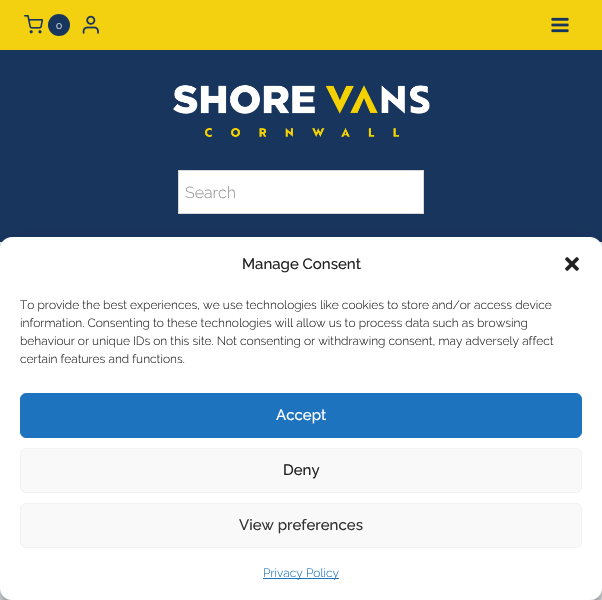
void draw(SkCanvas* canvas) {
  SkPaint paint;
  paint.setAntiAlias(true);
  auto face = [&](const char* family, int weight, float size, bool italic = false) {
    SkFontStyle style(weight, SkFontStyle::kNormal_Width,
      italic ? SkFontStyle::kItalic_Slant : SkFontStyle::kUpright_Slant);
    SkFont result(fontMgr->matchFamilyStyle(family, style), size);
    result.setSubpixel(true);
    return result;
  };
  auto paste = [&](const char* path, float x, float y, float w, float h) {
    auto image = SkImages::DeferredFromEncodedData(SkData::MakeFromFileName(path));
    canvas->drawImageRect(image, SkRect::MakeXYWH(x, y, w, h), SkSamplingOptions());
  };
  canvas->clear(0xffe7eaee);
  paint.setColor(0xfff3d111);
  canvas->drawRect(SkRect::MakeXYWH(0, 0, 602, 50), paint);
  paste("img/1.png", 24, 15, 19, 19);
  paint.setColor(0xff18355d);
  canvas->drawCircle(59, 25, 11, paint);
  paste("img/2.png", 82, 15, 17, 19);
  paste("img/3.png", 551, 17, 18, 16);
  canvas->drawRect(SkRect::MakeXYWH(0, 50, 602, 192), paint);
  paste("img/4.png", 173, 85, 257, 52);
  paint.setColor(0xffffffff);
  canvas->drawRect(SkRect::MakeXYWH(178.5f, 170.5f, 245, 43), paint);
  paint.setStroke(true);
  paint.setStrokeWidth(1);
  paint.setColor(0xffd8d8d8);
  canvas->drawRect(SkRect::MakeXYWH(178.5f, 170.5f, 245, 43), paint);
  paint.setStroke(false);
  paint.setColor(0xffffffff);
  canvas->drawRect(SkRect::MakeXYWH(8, 599, 586, 1), paint);
  paint.setColor(0x3b000000);
  paint.setMaskFilter(SkMaskFilter::MakeBlur(kNormal_SkBlurStyle, 3));
  canvas->drawRoundRect(SkRect::MakeXYWH(0, 243, 602, 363), 12, 12, paint);
  paint.setMaskFilter(nullptr);
  paint.setColor(0x30000000);
  paint.setMaskFilter(SkMaskFilter::MakeBlur(kNormal_SkBlurStyle, 10));
  canvas->drawRoundRect(SkRect::MakeXYWH(0, 247, 602, 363), 12, 12, paint);
  paint.setMaskFilter(nullptr);
  paint.setColor(0xff808080);
  paint.setMaskFilter(SkMaskFilter::MakeBlur(kNormal_SkBlurStyle, 2.5f));
  canvas->drawRoundRect(SkRect::MakeXYWH(532, 526, 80, 60), 2, 2, paint);
  paint.setMaskFilter(nullptr);
  paint.setColor(0xffffffff);
  canvas->drawRoundRect(SkRect::MakeXYWH(0, 237, 602, 363), 12, 12, paint);
  paste("img/5.png", 565, 257, 14, 14);
  paint.setColor(0xff1e73be);
  canvas->drawRoundRect(SkRect::MakeXYWH(20.5f, 393.5f, 561, 44), 5.5f, 5.5f, paint);
  paint.setStroke(true);
  canvas->drawRoundRect(SkRect::MakeXYWH(20.5f, 393.5f, 561, 44), 5.5f, 5.5f, paint);
  paint.setStroke(false);
  paint.setColor(0xfff9f9f9);
  canvas->drawRoundRect(SkRect::MakeXYWH(20.5f, 448.5f, 561, 44), 5.5f, 5.5f, paint);
  paint.setStroke(true);
  paint.setColor(0xfff2f2f2);
  canvas->drawRoundRect(SkRect::MakeXYWH(20.5f, 448.5f, 561, 44), 5.5f, 5.5f, paint);
  paint.setStroke(false);
  paint.setColor(0xfff9f9f9);
  canvas->drawRoundRect(SkRect::MakeXYWH(20.5f, 503.5f, 561, 44), 5.5f, 5.5f, paint);
  paint.setStroke(true);
  paint.setColor(0xfff2f2f2);
  canvas->drawRoundRect(SkRect::MakeXYWH(20.5f, 503.5f, 561, 44), 5.5f, 5.5f, paint);
  paint.setStroke(false);
  paint.setColor(0xff1e73be);
  canvas->drawRect(SkRect::MakeXYWH(263, 578, 76, 1), paint);
  auto f0 = face("Raleway", 100, 10);
  paint.setColor(0xffffffff);
  canvas->drawString("0", 56, 29, f0, paint);
  auto f1 = face("Raleway", 100, 16);
  paint.setColor(0xff989898);
  canvas->drawString("Search", 185, 198, f1, paint);
  auto f2 = face("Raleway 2", 100, 15);
  paint.setColor(0xff222222);
  canvas->drawString("Manage Consent", 242, 269, f2, paint);
  auto f3 = face("Raleway", 100, 12);
  {
    const struct { const char* s; float x, y; } items[] = {
      {"To provide the best experiences, we use technologies like cookies to store and/or access device", 20, 309},
      {"information. Consenting to these technologies will allow us to process data such as browsing", 20, 327},
      {"behaviour or unique IDs on this site. Not consenting or withdrawing consent, may adversely affect", 20, 345},
      {"certain features and functions.", 20, 363},
    };
    for (auto [s, x, y] : items) {
      canvas->drawString(s, x, y, f3, paint);
    }
  }
  paint.setColor(0xffffffff);
  canvas->drawString("Accept", 276, 420, f2, paint);
  paint.setColor(0xff222222);
  canvas->drawString("Deny", 283, 475, f2, paint);
  paint.setColor(0xff333333);
  canvas->drawString("View preferences", 239, 530, f2, paint);
  paint.setColor(0xff1e73be);
  canvas->drawString("Privacy Policy", 263, 577, f3, paint);
}
